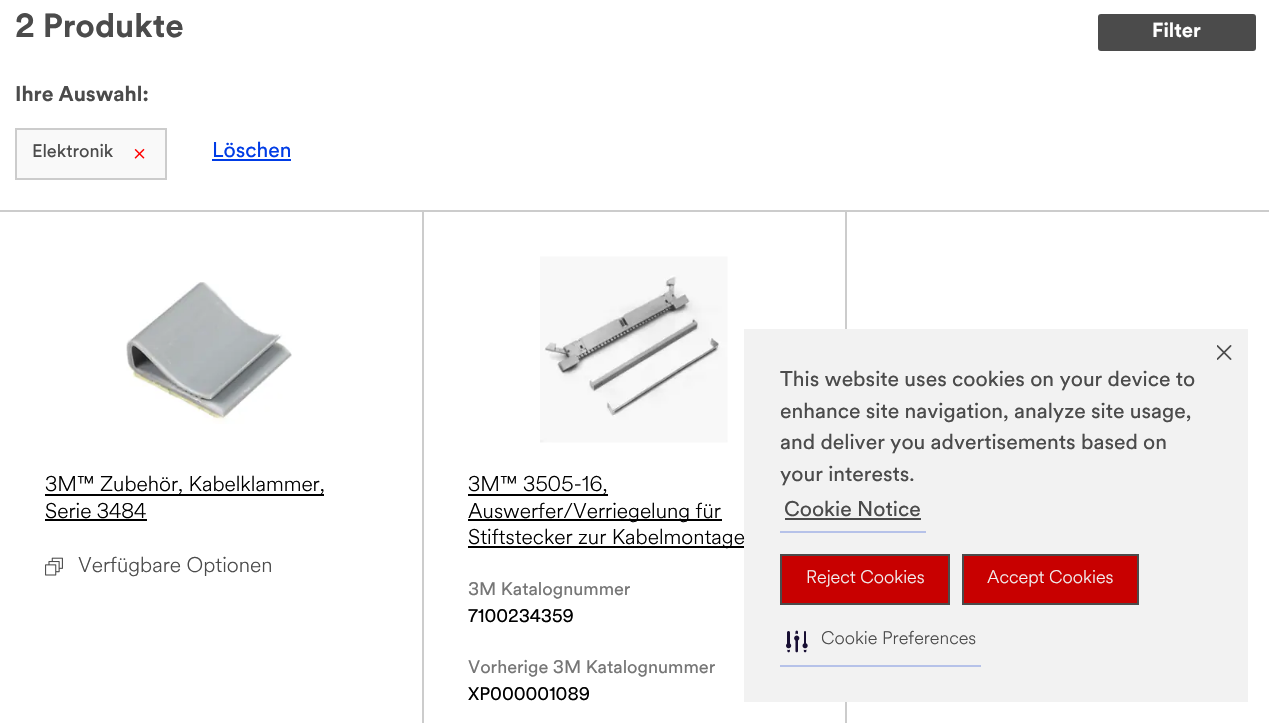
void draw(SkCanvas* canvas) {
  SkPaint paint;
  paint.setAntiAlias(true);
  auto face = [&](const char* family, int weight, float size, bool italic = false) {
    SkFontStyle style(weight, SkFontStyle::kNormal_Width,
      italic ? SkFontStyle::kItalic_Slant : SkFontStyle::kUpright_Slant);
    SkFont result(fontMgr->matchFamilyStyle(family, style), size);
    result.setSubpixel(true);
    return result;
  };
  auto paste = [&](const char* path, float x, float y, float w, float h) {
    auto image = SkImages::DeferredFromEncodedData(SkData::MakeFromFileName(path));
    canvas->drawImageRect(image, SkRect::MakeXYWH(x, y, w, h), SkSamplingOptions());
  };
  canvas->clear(0xffffffff);
  paint.setColor(0xff4b4b4b);
  canvas->drawRoundRect(SkRect::MakeXYWH(1098, 14, 158, 37), 3, 3, paint);
  paint.setColor(0xfff9f9f9);
  canvas->drawRect(SkRect::MakeXYWH(16, 129, 150, 50), paint);
  paint.setStroke(true);
  paint.setStrokeWidth(2);
  paint.setColor(0xffcccccc);
  canvas->drawRect(SkRect::MakeXYWH(16, 129, 150, 50), paint);
  paste("img/1.png", 134, 148, 11, 11);
  paint.setStroke(false);
  {
    const struct { float x, y, w, h; SkColor color; } items[] = {
      {212, 159, 79, 2, 0xff003ce6},
      {0, 210, 1269, 2, 0xffcccccc},
      {422, 212, 2, 511, 0xffcccccc},
    };
    for (auto [x, y, w, h, color] : items) {
      paint.setColor(color);
      canvas->drawRect(SkRect::MakeXYWH(x, y, w, h), paint);
    }
  }
  paste("img/2.png", 126, 282, 166, 142);
  paint.setColor(0xff000000);
  canvas->drawRect(SkRect::MakeXYWH(45, 494, 279, 2), paint);
  canvas->drawRect(SkRect::MakeXYWH(45, 519, 102, 2), paint);
  paste("img/3.png", 45, 557, 18, 19);
  paint.setColor(0xffcccccc);
  canvas->drawRect(SkRect::MakeXYWH(845, 212, 2, 511), paint);
  paste("img/4.png", 540, 256, 188, 187);
  {
    const struct { float x, y, w, h; SkColor color; } items[] = {
      {468, 494, 140, 2, 0xff000000},
      {468, 519, 254, 2, 0xff000000},
      {468, 546, 282, 2, 0xff000000},
      {744, 329, 504, 373, 0xfff2f2f2},
      {780, 531, 146, 2, 0xffb6c2e9},
      {785, 518, 136, 2, 0xff4b4b4b},
    };
    for (auto [x, y, w, h, color] : items) {
      paint.setColor(color);
      canvas->drawRect(SkRect::MakeXYWH(x, y, w, h), paint);
    }
  }
  paste("img/5.png", 1217, 345, 15, 15);
  paint.setColor(0xffc80000);
  canvas->drawRect(SkRect::MakeXYWH(781, 555, 168, 49), paint);
  paint.setStroke(true);
  paint.setColor(0xff4b4b4b);
  canvas->drawRect(SkRect::MakeXYWH(781, 555, 168, 49), paint);
  paint.setStroke(false);
  paint.setColor(0xffc80000);
  canvas->drawRect(SkRect::MakeXYWH(963, 555, 175, 49), paint);
  paint.setStroke(true);
  paint.setColor(0xff4b4b4b);
  canvas->drawRect(SkRect::MakeXYWH(963, 555, 175, 49), paint);
  paint.setStroke(false);
  paint.setColor(0xffb6c2e9);
  canvas->drawRect(SkRect::MakeXYWH(780, 665, 201, 2), paint);
  paste("img/6.png", 786, 630, 22, 23);
  auto f0 = face("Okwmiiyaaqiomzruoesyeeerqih", 700, 33);
  paint.setColor(0xff4b4b4b);
  canvas->drawString("2 Produkte", 15, 37, f0, paint);
  auto f1 = face("Okwmiiyaaqiomzruoesyeeerqih", 700, 20);
  paint.setColor(0xffffffff);
  canvas->drawString("Filter", 1152, 37, f1, paint);
  auto f2 = face("Okwmiiyaaqiomzruoesyeeerqih", 700, 21);
  paint.setColor(0xff4b4b4b);
  canvas->drawString("Ihre Auswahl:", 15, 101, f2, paint);
  auto f3 = face("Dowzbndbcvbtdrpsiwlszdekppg", 400, 18);
  canvas->drawString("Elektronik", 32, 157, f3, paint);
  auto f4 = face("Dowzbndbcvbtdrpsiwlszdekppg", 400, 21);
  paint.setColor(0xff003ce6);
  canvas->drawString("Löschen", 212, 157, f4, paint);
  auto f5 = face("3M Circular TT", 300, 21);
  paint.setColor(0xff000000);
  canvas->drawString("3M™ Zubehör, Kabelklammer,", 45, 491, f5, paint);
  canvas->drawString("Serie 3484", 45, 518, f5, paint);
  paint.setColor(0xff4b4b4b);
  canvas->drawString("Verfügbare Optionen", 78, 572, f5, paint);
  paint.setColor(0xff000000);
  {
    const struct { const char* s; float x, y; } items[] = {
      {"3M™ 3505-16,", 468, 491},
      {"Auswerfer/Verriegelung für", 468, 518},
      {"Stiftstecker zur Kabelmontage", 468, 544},
    };
    for (auto [s, x, y] : items) {
      canvas->drawString(s, x, y, f5, paint);
    }
  }
  paint.setColor(0xff767676);
  canvas->drawString("3M Katalognummer", 468, 595, f3, paint);
  paint.setColor(0xff000000);
  canvas->drawString("7100234359", 468, 622, f3, paint);
  paint.setColor(0xff767676);
  canvas->drawString("Vorherige 3M Katalognummer", 468, 673, f3, paint);
  paint.setColor(0xff000000);
  canvas->drawString("XP000001089", 468, 700, f3, paint);
  paint.setColor(0xff4b4b4b);
  {
    const struct { const char* s; float x, y; } items[] = {
      {"This website uses cookies on your device to", 780, 386},
      {"enhance site navigation, analyze site usage,", 780, 418},
      {"and deliver you advertisements based on", 780, 449},
      {"your interests.", 780, 481},
      {"Cookie Notice", 784, 516},
    };
    for (auto [s, x, y] : items) {
      canvas->drawString(s, x, y, f4, paint);
    }
  }
  auto f6 = face("3M Circular TT", 300, 18);
  paint.setColor(0xfff2f2f2);
  canvas->drawString("Reject Cookies", 806, 583, f6, paint);
  canvas->drawString("Accept Cookies", 987, 583, f6, paint);
  paint.setColor(0xff4b4b4b);
  canvas->drawString("Cookie Preferences", 821, 644, f6, paint);
}
